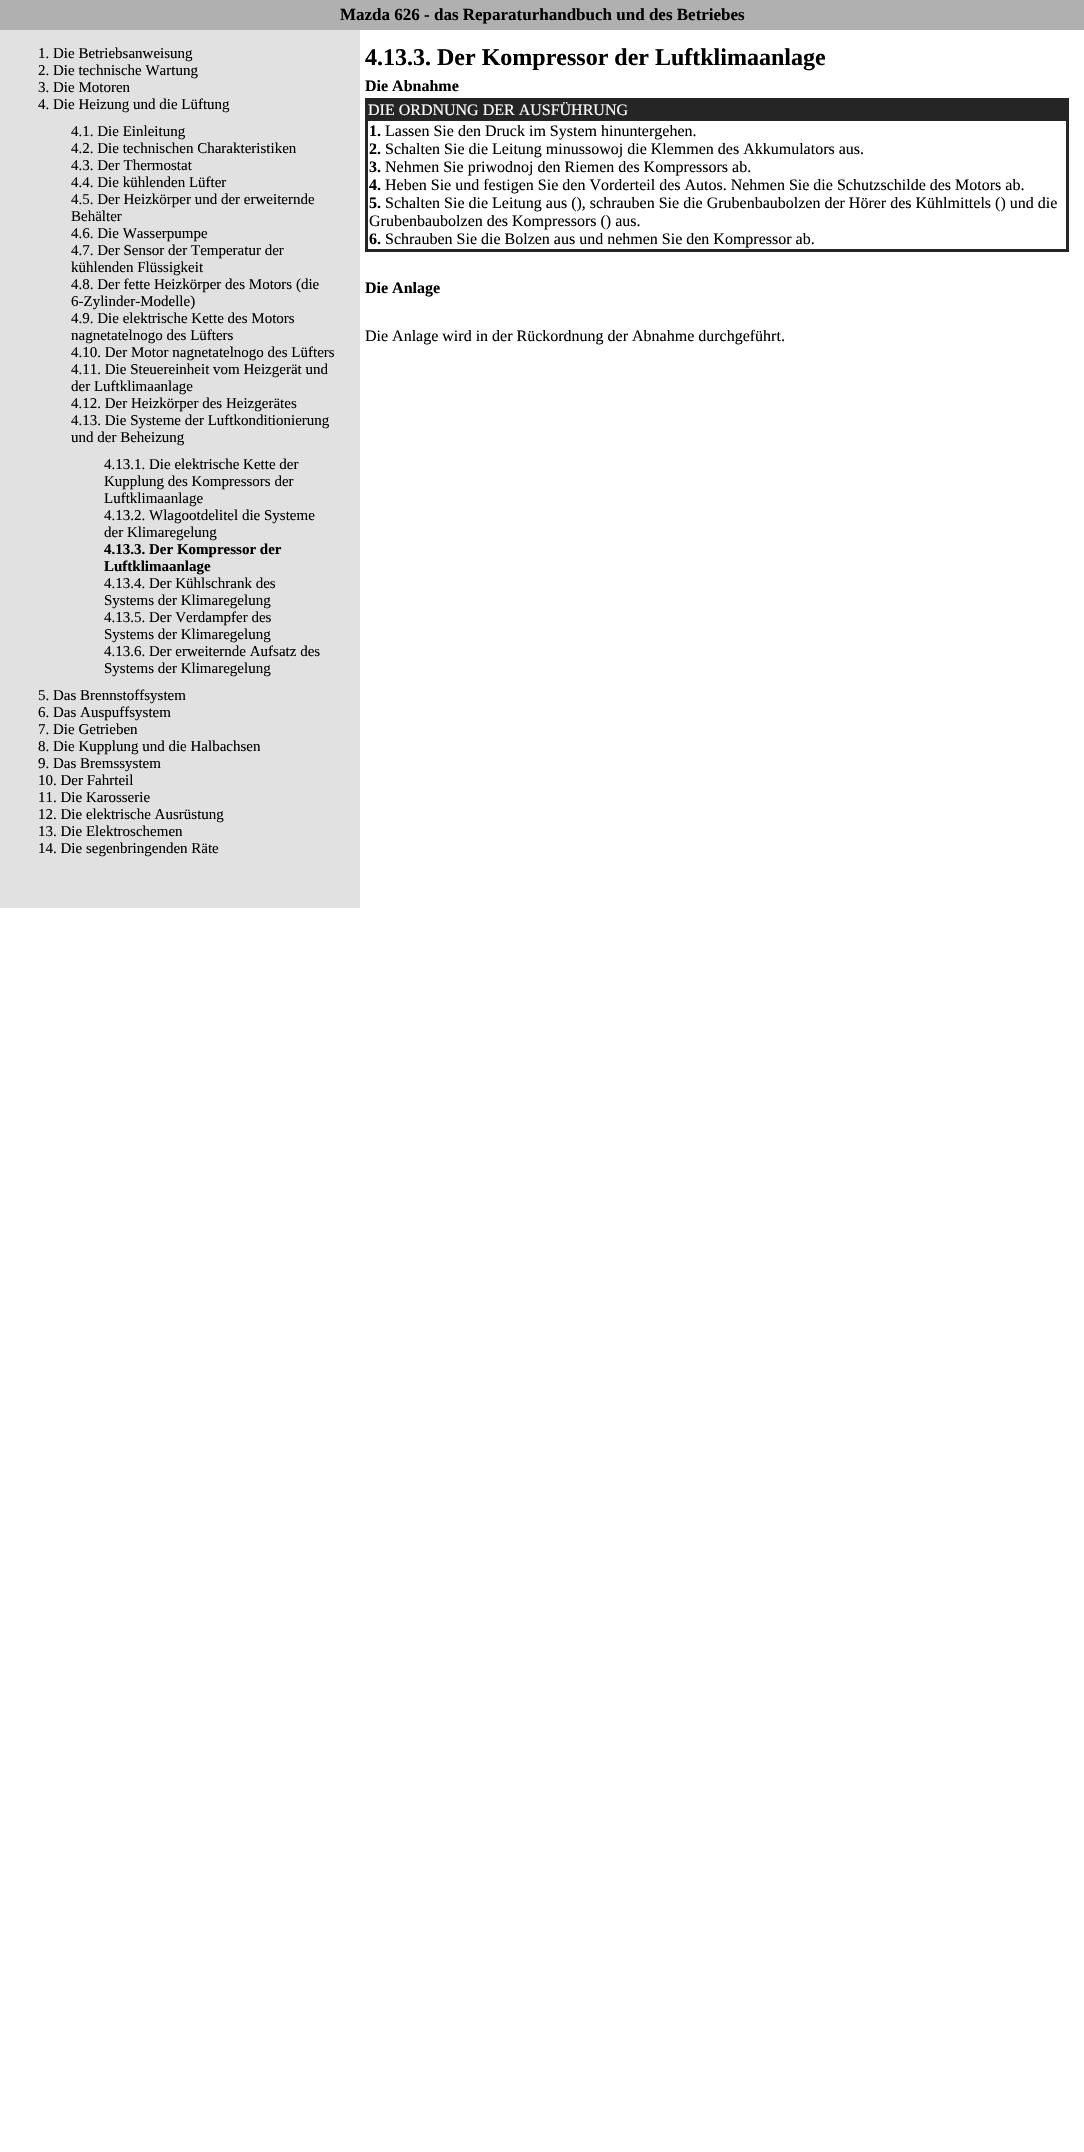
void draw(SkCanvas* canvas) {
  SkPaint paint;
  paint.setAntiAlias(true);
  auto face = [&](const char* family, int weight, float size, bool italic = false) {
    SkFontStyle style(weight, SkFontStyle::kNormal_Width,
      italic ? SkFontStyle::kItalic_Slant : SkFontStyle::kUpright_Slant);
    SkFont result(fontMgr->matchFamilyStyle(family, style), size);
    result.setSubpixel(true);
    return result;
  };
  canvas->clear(0xffffffff);
  {
    const struct { float x, y, w, h; SkColor color; } items[] = {
      {0, 0, 1084, 30, 0xffb0b0b0},
      {0, 30, 360, 878, 0xffe1e1e1},
      {365, 98, 704, 154, 0xff252525},
      {368, 121, 698, 128, 0xffffffff},
    };
    for (auto [x, y, w, h, color] : items) {
      paint.setColor(color);
      canvas->drawRect(SkRect::MakeXYWH(x, y, w, h), paint);
    }
  }
  auto f0 = face("Liberation Serif", 700, 17);
  paint.setColor(0xff000000);
  canvas->drawString("Mazda 626 - das Reparaturhandbuch und des Betriebes", 340, 20, f0, paint);
  auto f1 = face("Liberation Serif", 400, 15);
  {
    const struct { const char* s; float x, y; } items[] = {
      {"1. Die Betriebsanweisung", 38, 58},
      {"2. Die technische Wartung", 38, 75},
      {"3. Die Motoren", 38, 92},
      {"4. Die Heizung und die Lüftung", 38, 109},
      {"4.1. Die Einleitung", 71, 136},
      {"4.2. Die technischen Charakteristiken", 71, 153},
      {"4.3. Der Thermostat", 71, 170},
      {"4.4. Die kühlenden Lüfter", 71, 187},
      {"4.5. Der Heizkörper und der erweiternde", 71, 204},
      {"Behälter", 71, 221},
      {"4.6. Die Wasserpumpe", 71, 238},
      {"4.7. Der Sensor der Temperatur der", 71, 255},
      {"kühlenden Flüssigkeit", 71, 272},
      {"4.8. Der fette Heizkörper des Motors (die", 71, 289},
      {"6-Zylinder-Modelle)", 71, 306},
      {"4.9. Die elektrische Kette des Motors", 71, 323},
      {"nagnetatelnogo des Lüfters", 71, 340},
      {"4.10. Der Motor nagnetatelnogo des Lüfters", 71, 357},
      {"4.11. Die Steuereinheit vom Heizgerät und", 71, 374},
      {"der Luftklimaanlage", 71, 391},
      {"4.12. Der Heizkörper des Heizgerätes", 71, 408},
      {"4.13. Die Systeme der Luftkonditionierung", 71, 425},
      {"und der Beheizung", 71, 442},
      {"4.13.1. Die elektrische Kette der", 104, 469},
      {"Kupplung des Kompressors der", 104, 486},
      {"Luftklimaanlage", 104, 503},
      {"4.13.2. Wlagootdelitel die Systeme", 104, 520},
      {"der Klimaregelung", 104, 537},
    };
    for (auto [s, x, y] : items) {
      canvas->drawString(s, x, y, f1, paint);
    }
  }
  auto f2 = face("Liberation Serif", 700, 15);
  canvas->drawString("4.13.3. Der Kompressor der", 104, 554, f2, paint);
  canvas->drawString("Luftklimaanlage", 104, 571, f2, paint);
  {
    const struct { const char* s; float x, y; } items[] = {
      {"4.13.4. Der Kühlschrank des", 104, 588},
      {"Systems der Klimaregelung", 104, 605},
      {"4.13.5. Der Verdampfer des", 104, 622},
      {"Systems der Klimaregelung", 104, 639},
      {"4.13.6. Der erweiternde Aufsatz des", 104, 656},
      {"Systems der Klimaregelung", 104, 673},
      {"5. Das Brennstoffsystem", 38, 700},
      {"6. Das Auspuffsystem", 38, 717},
      {"7. Die Getrieben", 38, 734},
      {"8. Die Kupplung und die Halbachsen", 38, 751},
      {"9. Das Bremssystem", 38, 768},
      {"10. Der Fahrteil", 38, 785},
      {"11. Die Karosserie", 38, 802},
      {"12. Die elektrische Ausrüstung", 38, 819},
      {"13. Die Elektroschemen", 38, 836},
      {"14. Die segenbringenden Räte", 38, 853},
    };
    for (auto [s, x, y] : items) {
      canvas->drawString(s, x, y, f1, paint);
    }
  }
  auto f3 = face("Liberation Serif", 700, 24);
  canvas->drawString("4.13.3. Der Kompressor der Luftklimaanlage", 365, 65, f3, paint);
  auto f4 = face("Liberation Serif", 700, 16);
  canvas->drawString("Die Abnahme", 365, 91, f4, paint);
  auto f5 = face("Liberation Serif", 400, 16);
  paint.setColor(0xffffffff);
  canvas->drawString("DIE ORDNUNG DER AUSFÜHRUNG", 368, 115, f5, paint);
  paint.setColor(0xff000000);
  canvas->drawString("1.", 369, 136, f4, paint);
  canvas->drawString("Lassen Sie den Druck im System hinuntergehen.", 385, 136, f5, paint);
  canvas->drawString("2.", 369, 154, f4, paint);
  canvas->drawString("Schalten Sie die Leitung minussowoj die Klemmen des Akkumulators aus.", 385, 154, f5, paint);
  canvas->drawString("3.", 369, 172, f4, paint);
  canvas->drawString("Nehmen Sie priwodnoj den Riemen des Kompressors ab.", 385, 172, f5, paint);
  canvas->drawString("4.", 369, 190, f4, paint);
  canvas->drawString("Heben Sie und festigen Sie den Vorderteil des Autos. Nehmen Sie die Schutzschilde des Motors ab.", 385, 190, f5, paint);
  canvas->drawString("5.", 369, 208, f4, paint);
  canvas->drawString("Schalten Sie die Leitung aus (), schrauben Sie die Grubenbaubolzen der Hörer des Kühlmittels () und die", 385, 208, f5, paint);
  canvas->drawString("Grubenbaubolzen des Kompressors () aus.", 369, 226, f5, paint);
  canvas->drawString("6.", 369, 244, f4, paint);
  canvas->drawString("Schrauben Sie die Bolzen aus und nehmen Sie den Kompressor ab.", 385, 244, f5, paint);
  canvas->drawString("Die Anlage", 365, 293, f4, paint);
  canvas->drawString("Die Anlage wird in der Rückordnung der Abnahme durchgeführt.", 365, 341, f5, paint);
}
